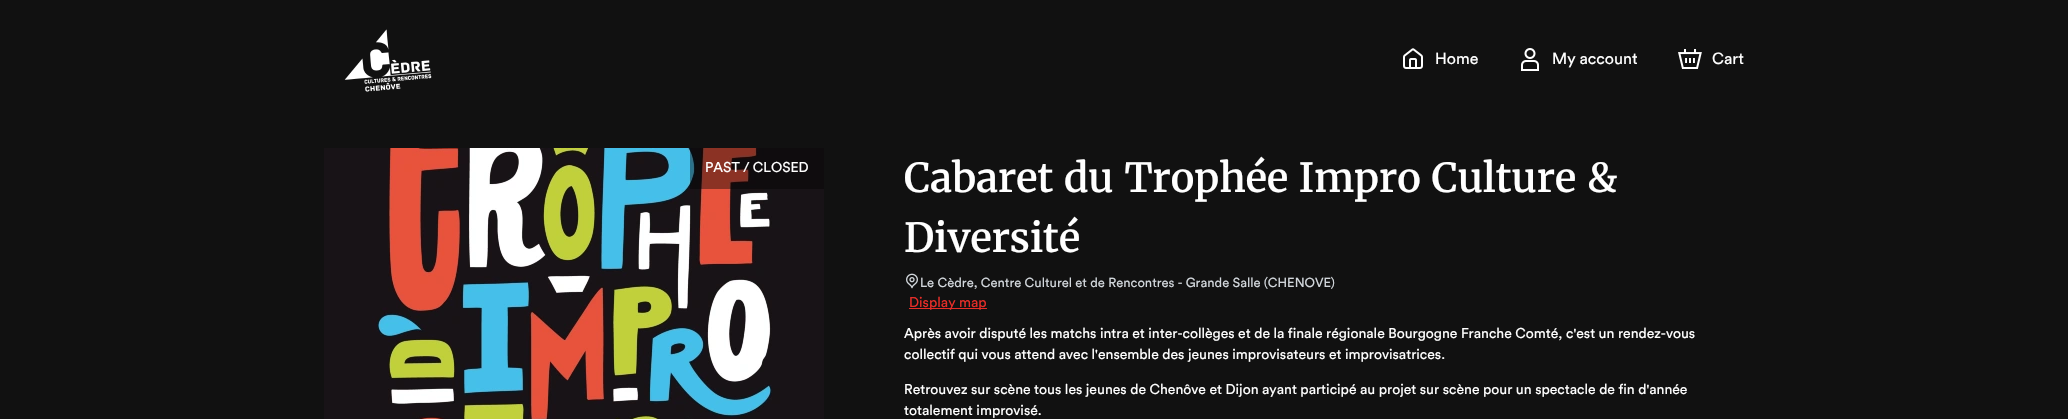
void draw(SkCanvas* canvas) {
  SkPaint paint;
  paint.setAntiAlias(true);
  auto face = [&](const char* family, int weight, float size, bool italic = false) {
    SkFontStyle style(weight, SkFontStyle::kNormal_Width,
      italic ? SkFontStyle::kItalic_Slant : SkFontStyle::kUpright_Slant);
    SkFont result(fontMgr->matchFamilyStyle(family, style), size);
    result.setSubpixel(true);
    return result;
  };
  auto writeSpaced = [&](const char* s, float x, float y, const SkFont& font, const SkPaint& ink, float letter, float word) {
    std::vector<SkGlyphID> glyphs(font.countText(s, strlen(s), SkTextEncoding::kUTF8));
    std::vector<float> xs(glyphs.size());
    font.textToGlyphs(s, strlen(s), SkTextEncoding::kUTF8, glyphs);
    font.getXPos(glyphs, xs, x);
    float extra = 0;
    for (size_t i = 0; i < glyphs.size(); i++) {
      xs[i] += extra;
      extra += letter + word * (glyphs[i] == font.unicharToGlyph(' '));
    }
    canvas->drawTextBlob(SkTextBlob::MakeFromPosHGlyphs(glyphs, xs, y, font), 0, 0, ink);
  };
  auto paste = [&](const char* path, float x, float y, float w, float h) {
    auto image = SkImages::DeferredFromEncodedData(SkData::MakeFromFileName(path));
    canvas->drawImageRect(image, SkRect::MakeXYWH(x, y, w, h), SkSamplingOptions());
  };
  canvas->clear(0xff111111);
  paste("img/1.png", 344, 29, 88, 63);
  paste("img/2.png", 1403, 48, 20, 21);
  paste("img/3.png", 1521, 48, 18, 23);
  paste("img/4.png", 1678, 49, 24, 20);
  paste("img/5.png", 324, 148, 500, 271);
  paint.setColor(0x66000000);
  canvas->drawRect(SkRect::MakeXYWH(690, 148, 134, 41), paint);
  paste("img/6.png", 906, 273, 12, 16);
  paint.setColor(0xffe62d28);
  canvas->drawRect(SkRect::MakeXYWH(909, 308, 78, 1), paint);
  auto f0 = face("Circular", 400, 16);
  paint.setColor(0xffffffff);
  {
    const struct { const char* s; float x, y; } items[] = {
      {"Home", 1435, 64},
      {"My account", 1552, 64},
      {"Cart", 1712, 64},
    };
    for (auto [s, x, y] : items) {
      canvas->drawString(s, x, y, f0, paint);
    }
  }
  auto f1 = face("Circular", 400, 14);
  canvas->drawString("PAST / CLOSED", 705, 172, f1, paint);
  auto f2 = face("Merriweather", 600, 40);
  writeSpaced("Cabaret du Trophée Impro Culture &", 904, 192, f2, paint, 0, 1.25f);
  canvas->drawString("Diversité", 904, 252, f2, paint);
  auto f3 = face("Circular", 400, 13);
  paint.setColor(0xffd2d7dc);
  canvas->drawString("Le Cèdre, Centre Culturel et de Rencontres - Grande Salle (CHENOVE)", 920, 287, f3, paint);
  paint.setColor(0xffe62d28);
  canvas->drawString("Display map", 909, 307, f1, paint);
  paint.setColor(0xffffffff);
  {
    const struct { const char* s; float x, y; } items[] = {
      {"Après avoir disputé les matchs intra et inter-collèges et de la finale régionale Bourgogne Franche Comté, c'est un rendez-vous", 904, 338},
      {"collectif qui vous attend avec l'ensemble des jeunes improvisateurs et improvisatrices.", 904, 359},
      {"Retrouvez sur scène tous les jeunes de Chenôve et Dijon ayant participé au projet sur scène pour un spectacle de fin d'année", 904, 394},
      {"totalement improvisé.", 904, 415},
    };
    for (auto [s, x, y] : items) {
      canvas->drawString(s, x, y, f1, paint);
    }
  }
}
